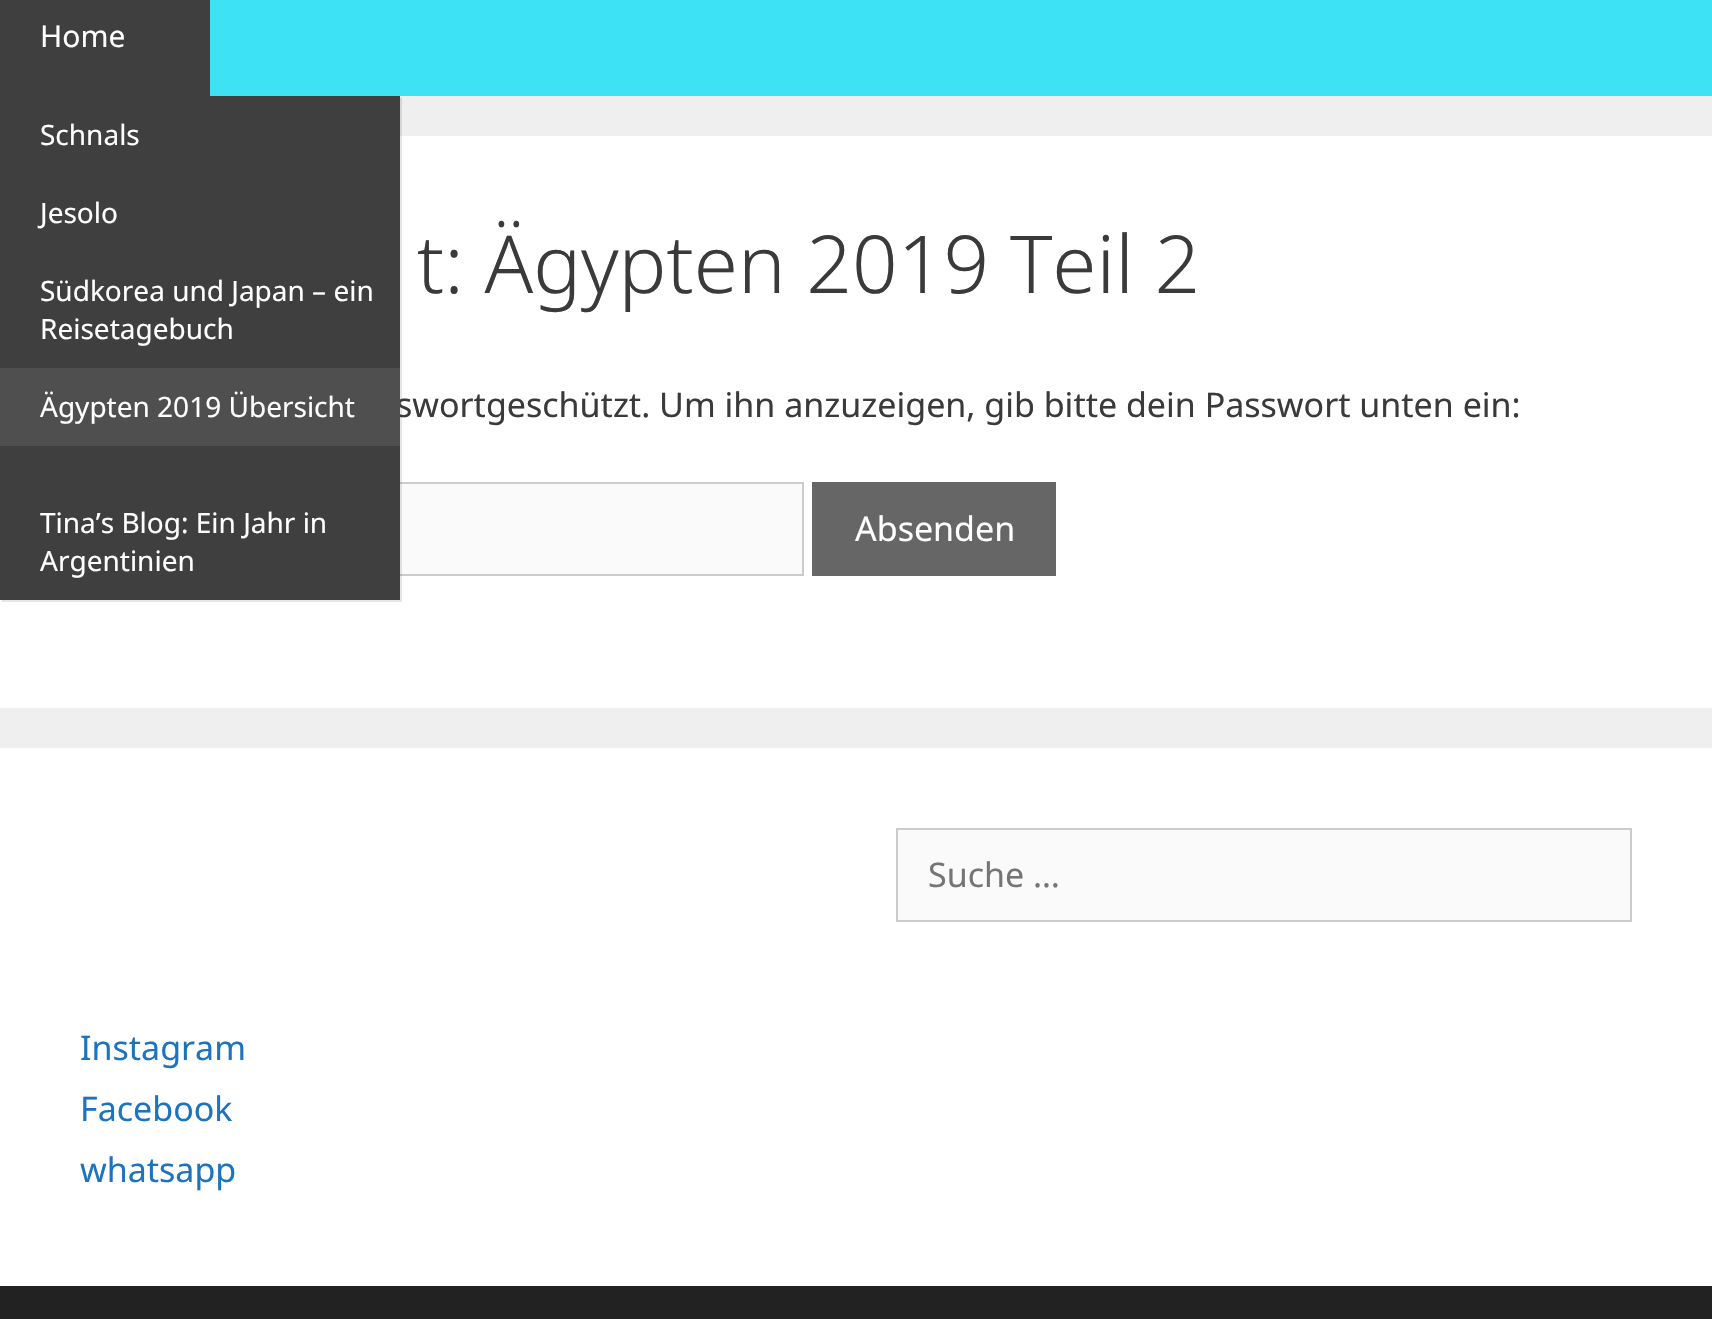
void draw(SkCanvas* canvas) {
  SkPaint paint;
  paint.setAntiAlias(true);
  auto face = [&](const char* family, int weight, float size, bool italic = false) {
    SkFontStyle style(weight, SkFontStyle::kNormal_Width,
      italic ? SkFontStyle::kItalic_Slant : SkFontStyle::kUpright_Slant);
    SkFont result(fontMgr->matchFamilyStyle(family, style), size);
    result.setSubpixel(true);
    return result;
  };
  auto shape = [&](const char* data, bool evenOdd = false) {
    SkPath result = *SkParsePath::FromSVGString(data);
    if (evenOdd) result.setFillType(SkPathFillType::kEvenOdd);
    return result;
  };
  canvas->clear(0xffefefef);
  {
    const struct { float x, y, w, h; SkColor color; } items[] = {
      {210, 0, 1502, 96, 0xff3de2f4},
      {0, 0, 210, 96, 0xff3f3f3f},
      {0, 136, 1712, 572, 0xffffffff},
      {400, 484, 402, 90, 0xfffafafa},
    };
    for (auto [x, y, w, h, color] : items) {
      paint.setColor(color);
      canvas->drawRect(SkRect::MakeXYWH(x, y, w, h), paint);
    }
  }
  paint.setStroke(true);
  paint.setStrokeWidth(2);
  paint.setColor(0xffcccccc);
  canvas->drawRect(SkRect::MakeXYWH(245, 483, 558, 92), paint);
  paint.setStroke(false);
  paint.setColor(0x1a000000);
  canvas->drawPath(shape("M2 600V602H402V98H400V600Z"), paint);
  paint.setColor(0xff666666);
  canvas->drawRect(SkRect::MakeXYWH(812, 482, 244, 94), paint);
  paint.setColor(0xffffffff);
  canvas->drawRect(SkRect::MakeXYWH(0, 748, 1712, 538), paint);
  paint.setColor(0xfffafafa);
  canvas->drawRect(SkRect::MakeXYWH(897, 829, 734, 92), paint);
  paint.setStroke(true);
  paint.setColor(0xffcccccc);
  canvas->drawRect(SkRect::MakeXYWH(897, 829, 734, 92), paint);
  paint.setStroke(false);
  paint.setColor(0xff222222);
  canvas->drawRect(SkRect::MakeXYWH(0, 1286, 1712, 33), paint);
  auto f0 = face("Noto Sans", 400, 30);
  paint.setColor(0xffffffff);
  canvas->drawString("Home", 40, 47, f0, paint);
  auto f1 = face("Noto Sans", 300, 80);
  paint.setColor(0xff3a3a3a);
  canvas->drawString("t: Ägypten 2019 Teil 2", 417, 293, f1, paint);
  auto f2 = face("Noto Sans", 400, 34);
  canvas->drawString("swortgeschützt. Um ihn anzuzeigen, gib bitte dein Passwort unten ein:", 396, 417, f2, paint);
  paint.setColor(0xff3f3f3f);
  canvas->drawRect(SkRect::MakeXYWH(0, 96, 400, 504), paint);
  auto f3 = face("Noto Sans", 400, 28);
  paint.setColor(0xffffffff);
  canvas->drawString("Argentinien", 40, 571, f3, paint);
  canvas->drawString("Tina’s Blog: Ein Jahr in", 40, 533, f3, paint);
  paint.setColor(0xff4f4f4f);
  canvas->drawRect(SkRect::MakeXYWH(0, 368, 400, 78), paint);
  paint.setColor(0xffffffff);
  {
    const struct { const char* s; float x, y; } items[] = {
      {"Ägypten 2019 Übersicht", 40, 417},
      {"Reisetagebuch", 40, 339},
      {"Südkorea und Japan – ein", 40, 301},
      {"Jesolo", 40, 223},
      {"Schnals", 40, 145},
    };
    for (auto [s, x, y] : items) {
      canvas->drawString(s, x, y, f3, paint);
    }
  }
  canvas->drawString("Absenden", 855, 541, f2, paint);
  paint.setColor(0xff757575);
  canvas->drawString("Suche …", 928, 887, f2, paint);
  paint.setColor(0xff1e73be);
  {
    const struct { const char* s; float x, y; } items[] = {
      {"Instagram", 80, 1060},
      {"Facebook", 80, 1121},
      {"whatsapp", 80, 1182},
    };
    for (auto [s, x, y] : items) {
      canvas->drawString(s, x, y, f2, paint);
    }
  }
}
